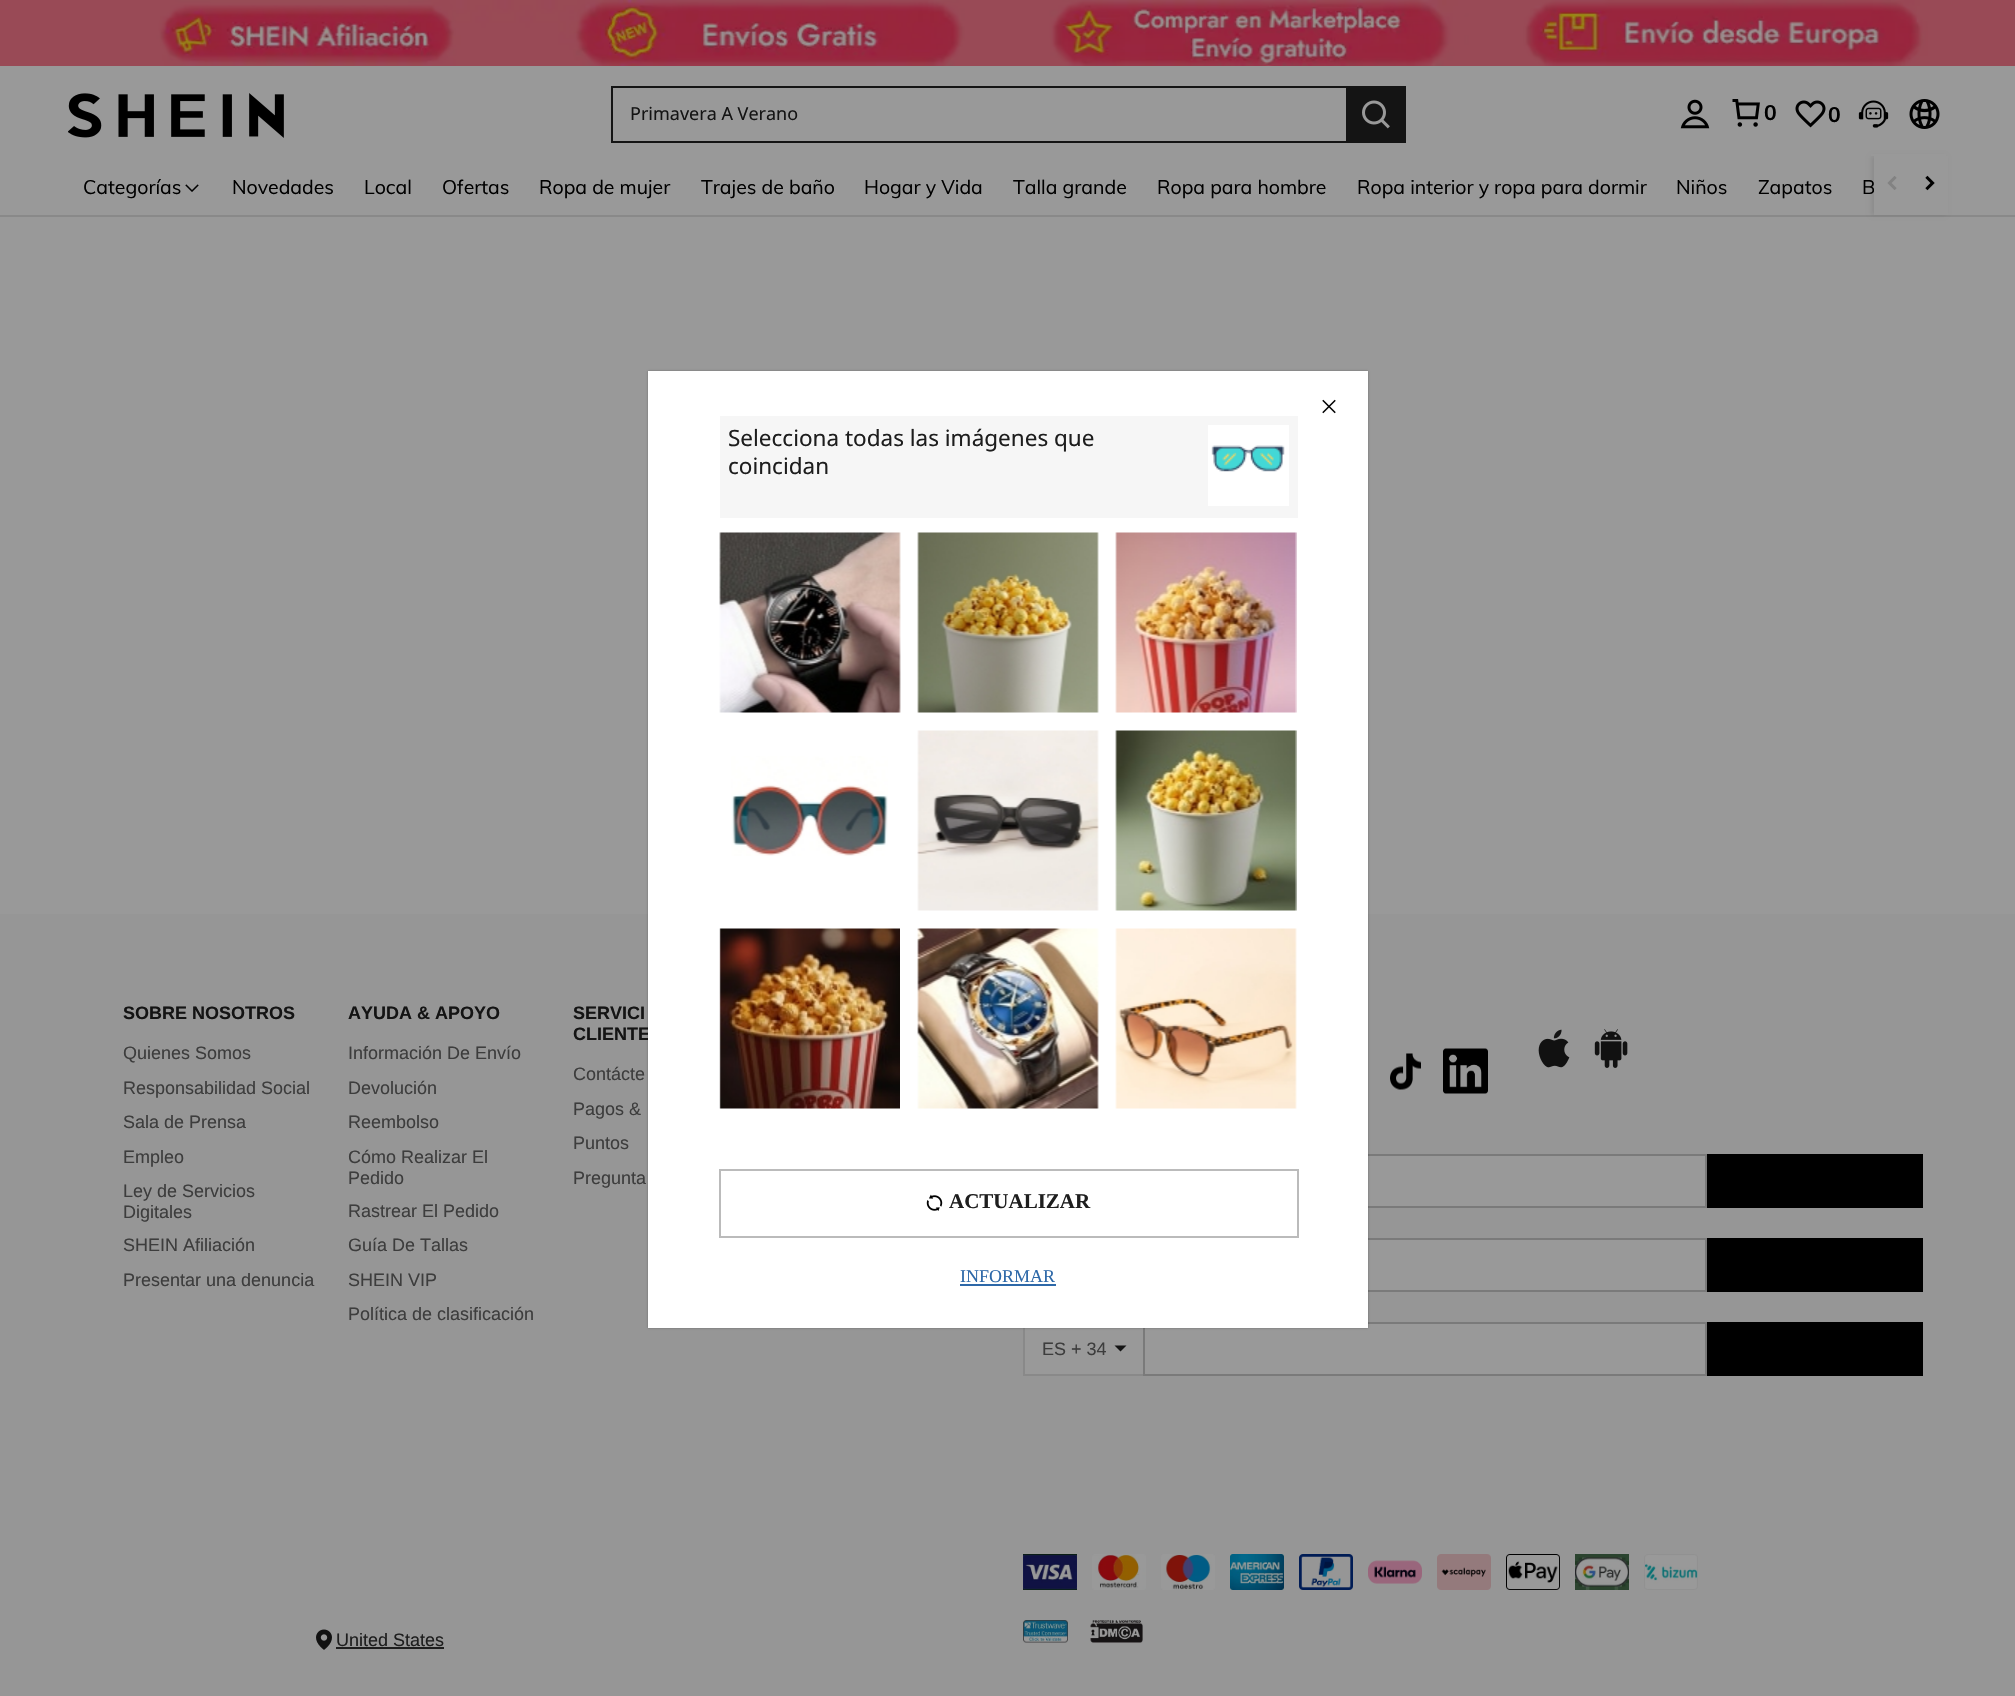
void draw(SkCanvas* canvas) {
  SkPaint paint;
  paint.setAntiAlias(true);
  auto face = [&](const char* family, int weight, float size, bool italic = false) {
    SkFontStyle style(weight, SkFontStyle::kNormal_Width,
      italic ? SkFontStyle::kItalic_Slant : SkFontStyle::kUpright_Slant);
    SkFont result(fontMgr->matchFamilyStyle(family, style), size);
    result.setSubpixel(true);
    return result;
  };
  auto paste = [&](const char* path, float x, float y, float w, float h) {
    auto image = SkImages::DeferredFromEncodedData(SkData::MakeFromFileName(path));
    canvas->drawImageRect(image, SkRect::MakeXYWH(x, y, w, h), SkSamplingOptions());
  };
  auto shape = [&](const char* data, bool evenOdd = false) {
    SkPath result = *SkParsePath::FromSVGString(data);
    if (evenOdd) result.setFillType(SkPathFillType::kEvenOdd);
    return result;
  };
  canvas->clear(0xff999999);
  paste("img/1.png", 0, 0, 2015, 66);
  paint.setColor(0xff898989);
  canvas->drawRect(SkRect::MakeXYWH(0, 215, 2015, 2), paint);
  paint.setColor(0x14000000);
  paint.setMaskFilter(SkMaskFilter::MakeBlur(kNormal_SkBlurStyle, 2));
  canvas->drawRect(SkRect::MakeXYWH(1871, 156, 75, 59), paint);
  paint.setMaskFilter(nullptr);
  paint.setColor(0xff999999);
  canvas->drawRect(SkRect::MakeXYWH(1871, 154, 75, 2), paint);
  paste("img/2.png", 68, 93, 216, 45);
  {
    const struct { float x, y, w, h; SkColor color; } items[] = {
      {611, 86, 735, 2, 0xff141414},
      {611, 141, 735, 2, 0xff141414},
      {611, 86, 2, 57, 0xff141414},
      {1346, 86, 60, 57, 0xff141414},
    };
    for (auto [x, y, w, h, color] : items) {
      paint.setColor(color);
      canvas->drawRect(SkRect::MakeXYWH(x, y, w, h), paint);
    }
  }
  paste("img/3.png", 1362, 100, 28, 29);
  paste("img/4.png", 1680, 99, 30, 30);
  paste("img/5.png", 1732, 99, 28, 28);
  paste("img/6.png", 1795, 100, 31, 28);
  paste("img/7.png", 1858, 100, 31, 28);
  paste("img/8.png", 1909, 99, 31, 30);
  paste("img/9.png", 185, 184, 14, 8);
  paint.setColor(0xff969696);
  canvas->drawRect(SkRect::MakeXYWH(0, 914, 2015, 782), paint);
  paste("img/12.png", 1390, 1053, 31, 37);
  paste("img/13.png", 1443, 1048, 45, 46);
  paste("img/14.png", 1538, 1029, 32, 39);
  paste("img/15.png", 1594, 1029, 34, 39);
  paint.setColor(0xff999999);
  canvas->drawRect(SkRect::MakeXYWH(1368, 1156, 337, 50), paint);
  paint.setStroke(true);
  paint.setStrokeWidth(2);
  paint.setColor(0xff7a7a7a);
  canvas->drawRect(SkRect::MakeXYWH(1024, 1155, 682, 52), paint);
  paint.setStroke(false);
  paint.setColor(0xff000000);
  canvas->drawRect(SkRect::MakeXYWH(1707, 1154, 216, 54), paint);
  paint.setColor(0xff999999);
  canvas->drawRect(SkRect::MakeXYWH(1368, 1240, 337, 50), paint);
  paint.setStroke(true);
  paint.setColor(0xff7a7a7a);
  canvas->drawRect(SkRect::MakeXYWH(1144, 1239, 562, 52), paint);
  paint.setStroke(false);
  {
    const struct { float x, y, w, h; SkColor color; } items[] = {
      {1707, 1238, 216, 54, 0xff000000},
      {1025, 1328, 118, 46, 0xff999999},
      {1023, 1374, 120, 2, 0xff898989},
      {1023, 1322, 2, 54, 0xff898989},
    };
    for (auto [x, y, w, h, color] : items) {
      paint.setColor(color);
      canvas->drawRect(SkRect::MakeXYWH(x, y, w, h), paint);
    }
  }
  paint.setColor(0xff141414);
  canvas->drawPath(shape("M1114.5 1345.5H1126.5L1120.5 1351.5Z"), paint);
  paint.setColor(0xff999999);
  canvas->drawRect(SkRect::MakeXYWH(1144, 1323, 562, 52), paint);
  paint.setStroke(true);
  paint.setColor(0xff7a7a7a);
  canvas->drawRect(SkRect::MakeXYWH(1144, 1323, 562, 52), paint);
  paint.setStroke(false);
  paint.setColor(0xff000000);
  canvas->drawRect(SkRect::MakeXYWH(1707, 1322, 216, 54), paint);
  paste("img/16.png", 1023, 1554, 54, 36);
  paste("img/17.png", 1092, 1554, 54, 36);
  paste("img/18.png", 1161, 1554, 54, 36);
  paste("img/19.png", 1230, 1554, 54, 36);
  paste("img/20.png", 1299, 1554, 54, 36);
  paste("img/21.png", 1368, 1560, 54, 24);
  paste("img/22.png", 1437, 1554, 54, 36);
  paste("img/23.png", 1506, 1554, 54, 36);
  paste("img/24.png", 1575, 1554, 54, 36);
  paste("img/25.png", 1644, 1554, 54, 36);
  paste("img/26.png", 316, 1629, 16, 21);
  paint.setColor(0xff1e1e1e);
  canvas->drawRect(SkRect::MakeXYWH(336, 1647, 108, 2), paint);
  paste("img/27.png", 1023, 1620, 45, 23);
  paste("img/28.png", 1090, 1620, 53, 23);
  paint.setColor(0x4d000000);
  paint.setMaskFilter(SkMaskFilter::MakeBlur(kNormal_SkBlurStyle, 1));
  canvas->drawRect(SkRect::MakeXYWH(648, 371, 720, 957), paint);
  paint.setMaskFilter(nullptr);
  auto f0 = face("Noto Sans", 400, 18);
  paint.setColor(0xff141414);
  canvas->drawString("Primavera A Verano", 630, 120, f0, paint);
  auto f1 = face("Muli", 700, 21);
  paint.setColor(0xff000000);
  canvas->drawString("0", 1764, 120, f1, paint);
  canvas->drawString("0", 1828, 122, f1, paint);
  auto f2 = face("Muli", 400, 19.5f);
  {
    const struct { const char* s; float x, y; } items[] = {
      {"Categorías", 83, 194},
      {"Novedades", 232, 194},
      {"Local", 364, 194},
      {"Ofertas", 442, 194},
      {"Ropa de mujer", 539, 194},
      {"Trajes de baño", 701, 194},
      {"Hogar y Vida", 864, 194},
      {"Talla grande", 1013, 194},
      {"Ropa para hombre", 1157, 194},
      {"Ropa interior y ropa para dormir", 1357, 194},
      {"Niños", 1676, 194},
      {"Zapatos", 1758, 194},
      {"B", 1862, 194},
    };
    for (auto [s, x, y] : items) {
      canvas->drawString(s, x, y, f2, paint);
    }
  }
  paint.setColor(0xff999999);
  canvas->drawRect(SkRect::MakeXYWH(1874, 156, 74, 59), paint);
  paste("img/10.png", 1887, 176, 10, 14);
  paste("img/11.png", 1925, 175, 10, 16);
  auto f3 = face("Liberation Sans", 700, 18);
  paint.setColor(0xff141414);
  canvas->drawString("SOBRE NOSOTROS", 123, 1019, f3, paint);
  auto f4 = face("Liberation Sans", 400, 18);
  paint.setColor(0xff3d3d3d);
  {
    const struct { const char* s; float x, y; } items[] = {
      {"Quienes Somos", 123, 1059},
      {"Responsabilidad Social", 123, 1094},
      {"Sala de Prensa", 123, 1128},
      {"Empleo", 123, 1163},
      {"Ley de Servicios", 123, 1197},
      {"Digitales", 123, 1218},
      {"SHEIN Afiliación", 123, 1251},
      {"Presentar una denuncia", 123, 1286},
    };
    for (auto [s, x, y] : items) {
      canvas->drawString(s, x, y, f4, paint);
    }
  }
  paint.setColor(0xff141414);
  canvas->drawString("AYUDA & APOYO", 348, 1019, f3, paint);
  paint.setColor(0xff3d3d3d);
  {
    const struct { const char* s; float x, y; } items[] = {
      {"Información De Envío", 348, 1059},
      {"Devolución", 348, 1094},
      {"Reembolso", 348, 1128},
      {"Cómo Realizar El", 348, 1163},
      {"Pedido", 348, 1184},
      {"Rastrear El Pedido", 348, 1217},
      {"Guía De Tallas", 348, 1251},
      {"SHEIN VIP", 348, 1286},
      {"Política de clasificación", 348, 1320},
    };
    for (auto [s, x, y] : items) {
      canvas->drawString(s, x, y, f4, paint);
    }
  }
  paint.setColor(0xff141414);
  canvas->drawString("SERVICI", 573, 1019, f3, paint);
  canvas->drawString("CLIENTE", 573, 1040, f3, paint);
  paint.setColor(0xff3d3d3d);
  {
    const struct { const char* s; float x, y; } items[] = {
      {"Contácte", 573, 1080},
      {"Pagos &", 573, 1115},
      {"Puntos", 573, 1149},
      {"Pregunta", 573, 1184},
      {"ES + 34", 1042, 1355},
    };
    for (auto [s, x, y] : items) {
      canvas->drawString(s, x, y, f4, paint);
    }
  }
  paint.setColor(0xff1e1e1e);
  canvas->drawString("United States", 336, 1646, f4, paint);
  paint.setColor(0xffffffff);
  canvas->drawRect(SkRect::MakeXYWH(648, 371, 720, 957), paint);
  paste("img/29.png", 1322, 399, 14, 15);
  paint.setColor(0xfff6f6f6);
  canvas->drawRect(SkRect::MakeXYWH(720, 416, 578, 102), paint);
  auto f5 = face("Noto Sans", 400, 22.5f);
  paint.setColor(0xff1e1e1e);
  canvas->drawString("Selecciona todas las imágenes que", 728, 446, f5, paint);
  canvas->drawString("coincidan", 728, 474, f5, paint);
  paint.setColor(0xffffffff);
  canvas->drawRect(SkRect::MakeXYWH(1208, 425, 81, 81), paint);
  paste("img/30.png", 1211, 445, 74, 27);
  paste("img/31.png", 719, 532, 182, 181);
  paste("img/32.png", 917, 532, 182, 181);
  paste("img/33.png", 1115, 532, 182, 181);
  paste("img/34.png", 731, 756, 157, 100);
  paste("img/35.png", 917, 730, 182, 181);
  paste("img/36.png", 1115, 730, 182, 181);
  paste("img/37.png", 719, 928, 181, 181);
  paste("img/38.png", 917, 928, 182, 181);
  paste("img/39.png", 1115, 928, 182, 181);
  paint.setStroke(true);
  paint.setColor(0xffbbbbbb);
  canvas->drawRect(SkRect::MakeXYWH(720, 1170, 578, 67), paint);
  paste("img/40.png", 926, 1194, 17, 17);
  auto f6 = face("Liberation Serif", 700, 21);
  paint.setStroke(false);
  paint.setColor(0xff1e1e1e);
  canvas->drawString("ACTUALIZAR", 949, 1208, f6, paint);
  auto f7 = face("Liberation Serif", 400, 18);
  paint.setColor(0xff2d68a8);
  canvas->drawString("INFORMAR", 960, 1282, f7, paint);
  canvas->drawRect(SkRect::MakeXYWH(960, 1284, 96, 2), paint);
}
